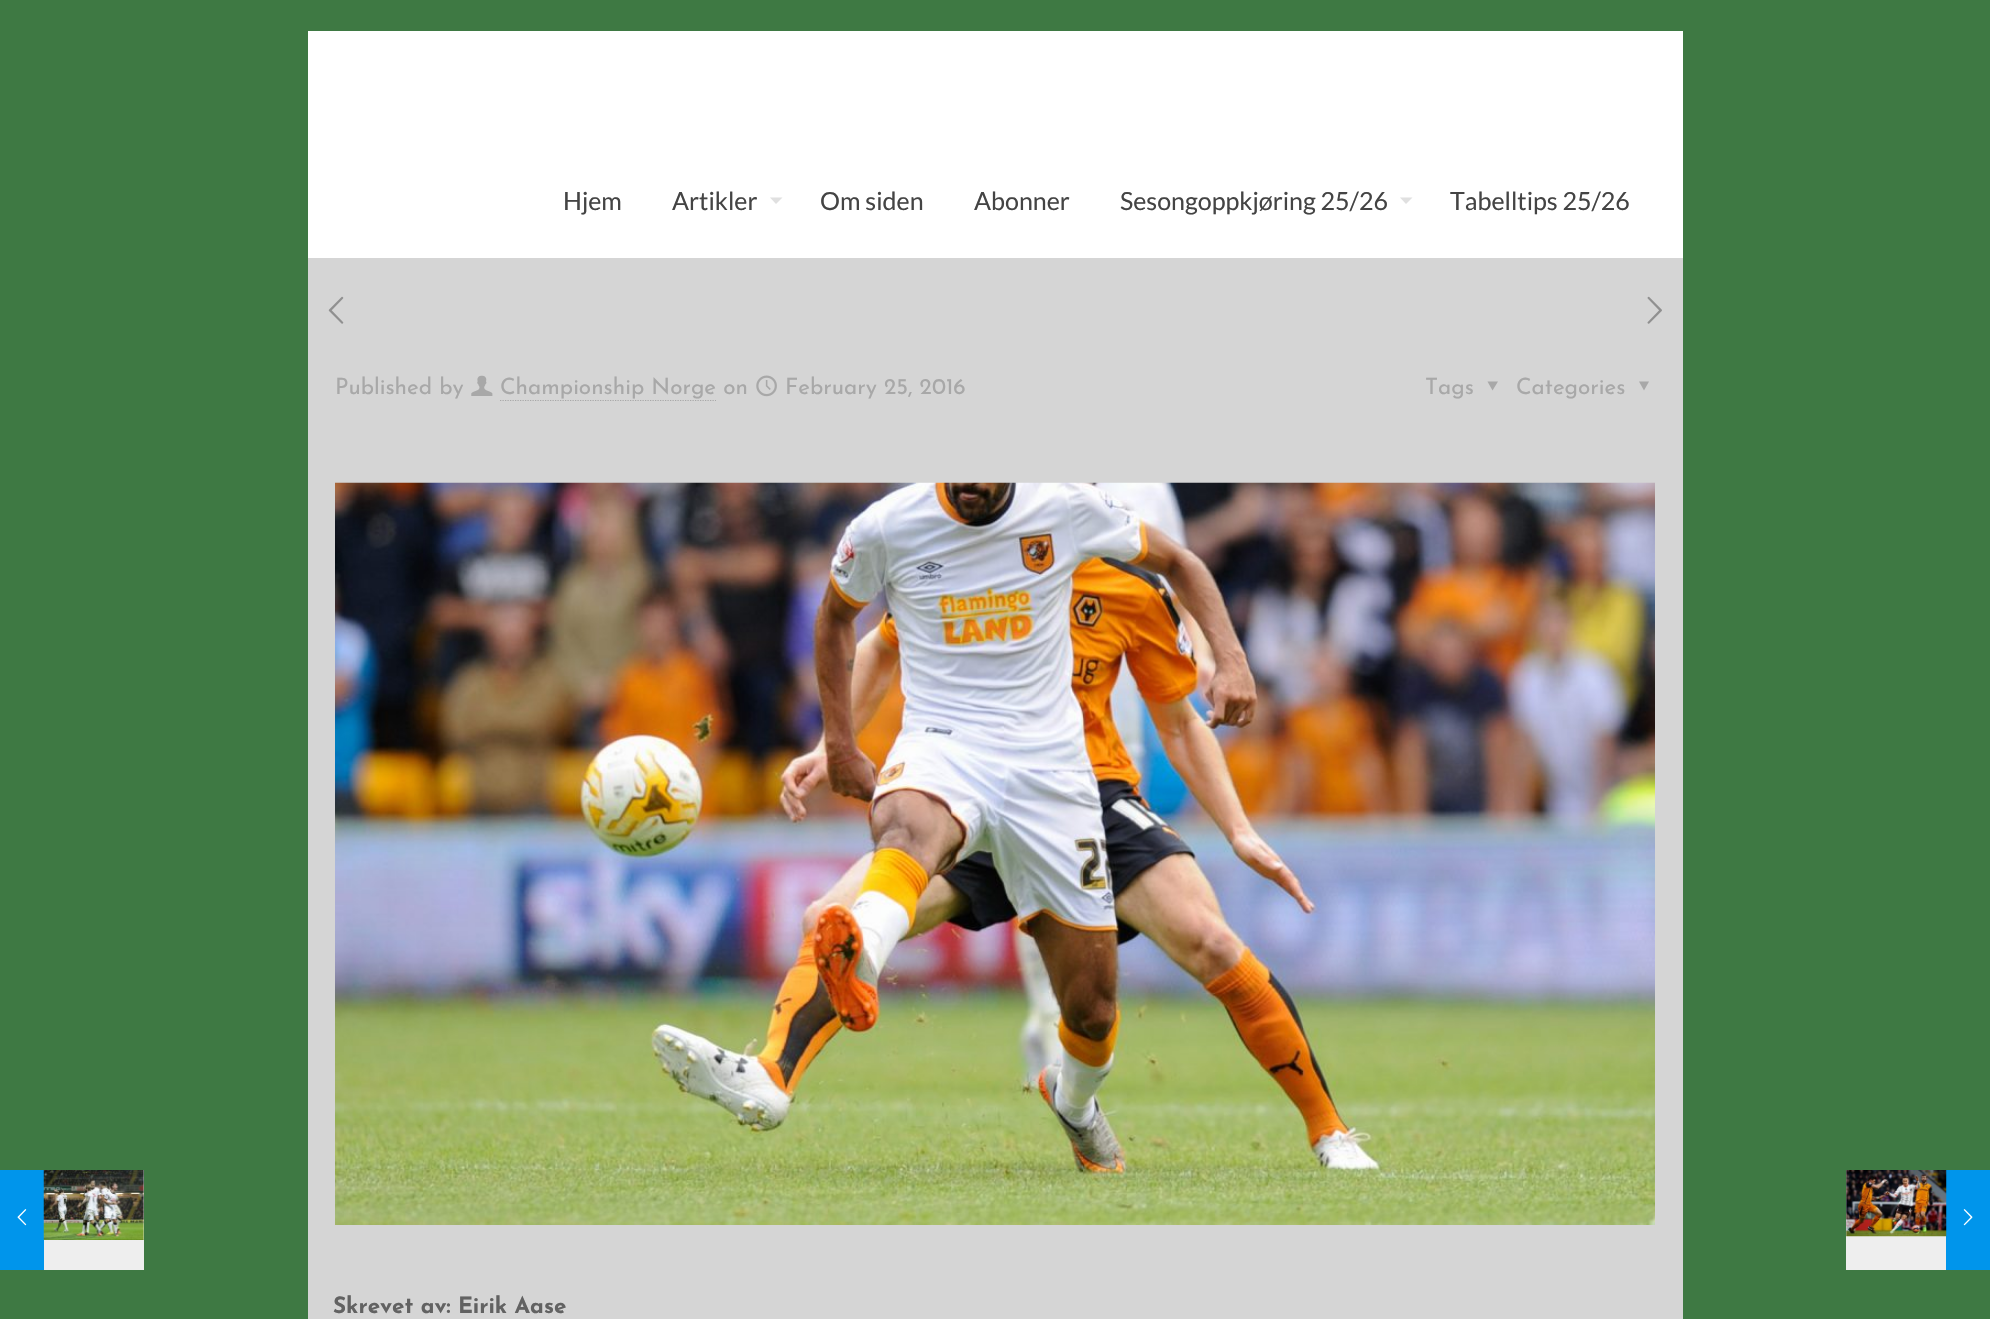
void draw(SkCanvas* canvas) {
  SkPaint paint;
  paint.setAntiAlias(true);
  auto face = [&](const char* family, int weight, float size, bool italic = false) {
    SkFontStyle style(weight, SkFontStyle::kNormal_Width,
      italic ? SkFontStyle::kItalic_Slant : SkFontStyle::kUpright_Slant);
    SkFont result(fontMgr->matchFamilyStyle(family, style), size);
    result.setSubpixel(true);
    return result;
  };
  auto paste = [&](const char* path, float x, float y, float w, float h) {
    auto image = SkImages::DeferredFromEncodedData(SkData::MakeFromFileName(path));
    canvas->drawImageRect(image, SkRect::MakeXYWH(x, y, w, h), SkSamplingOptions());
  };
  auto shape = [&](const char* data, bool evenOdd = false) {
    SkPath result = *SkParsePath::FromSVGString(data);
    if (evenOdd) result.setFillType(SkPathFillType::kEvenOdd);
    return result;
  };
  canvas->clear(0xff3e7943);
  paint.setColor(0xff0095eb);
  canvas->drawRect(SkRect::MakeXYWH(0, 1170, 44, 100), paint);
  paste("img/1.png", 17, 1209, 10, 17);
  paint.setColor(0xffeeeeee);
  canvas->drawRect(SkRect::MakeXYWH(44, 1170, 100, 100), paint);
  paste("img/2.png", 43, 1170, 101, 70);
  paint.setColor(0xffd5d5d5);
  canvas->drawRect(SkRect::MakeXYWH(308, 258, 1375, 1061), paint);
  paint.setColor(0xffffffff);
  canvas->drawRect(SkRect::MakeXYWH(308, 31, 1375, 227), paint);
  paint.setColor(0xffe0e0e0);
  canvas->drawPath(shape("M770 197.5H782.5L776 204Z"), paint);
  canvas->drawPath(shape("M1400 197.5H1412.5L1406 204Z"), paint);
  paste("img/3.png", 328, 296, 16, 28);
  paste("img/4.png", 1647, 296, 15, 28);
  paste("img/5.png", 471, 375, 22, 21);
  paint.setStroke(true);
  paint.setStrokeWidth(1.2f);
  paint.setColor(0xffa8a8a8);
  paint.setPathEffect(SkDashPathEffect::Make({{1.25f, 1.25f}}, 0));
  canvas->drawPath(shape("M500 400.5H716"), paint);
  paint.setPathEffect(nullptr);
  paste("img/6.png", 756, 375, 21, 22);
  paint.setStroke(false);
  canvas->drawPath(shape("M1498 381.5L1492.5 390.5L1487.5 381.5Z"), paint);
  canvas->drawPath(shape("M1649 381.5L1644 390.5L1639 381.5Z"), paint);
  paste("img/7.png", 335, 482, 1320, 743);
  paint.setColor(0xffeeeeee);
  canvas->drawRect(SkRect::MakeXYWH(1846, 1170, 100, 100), paint);
  paint.setColor(0xff0095eb);
  canvas->drawRect(SkRect::MakeXYWH(1946, 1170, 44, 100), paint);
  paste("img/8.png", 1846, 1170, 101, 67);
  paste("img/9.png", 1963, 1209, 10, 17);
  auto f0 = face("Lato", 400, 25);
  paint.setColor(0xff444444);
  {
    const struct { const char* s; float x, y; } items[] = {
      {"Hjem", 563, 210},
      {"Artikler", 672, 210},
      {"Om siden", 820, 210},
      {"Abonner", 974, 210},
      {"Sesongoppkjøring 25/26", 1120, 210},
      {"Tabelltips 25/26", 1450, 210},
    };
    for (auto [s, x, y] : items) {
      canvas->drawString(s, x, y, f0, paint);
    }
  }
  auto f1 = face("Josefin Sans", 400, 22.5f);
  paint.setColor(0xffa8a8a8);
  {
    const struct { const char* s; float x, y; } items[] = {
      {"Published by", 335, 394},
      {"Championship Norge on", 500, 394},
      {"February 25, 2016", 785, 394},
      {"Tags", 1425, 394},
      {"Categories", 1516, 394},
    };
    for (auto [s, x, y] : items) {
      canvas->drawString(s, x, y, f1, paint);
    }
  }
  auto f2 = face("Josefin Sans", 700, 22.5f);
  paint.setColor(0xff626262);
  canvas->drawString("Skrevet av: Eirik Aase", 333, 1313, f2, paint);
}
